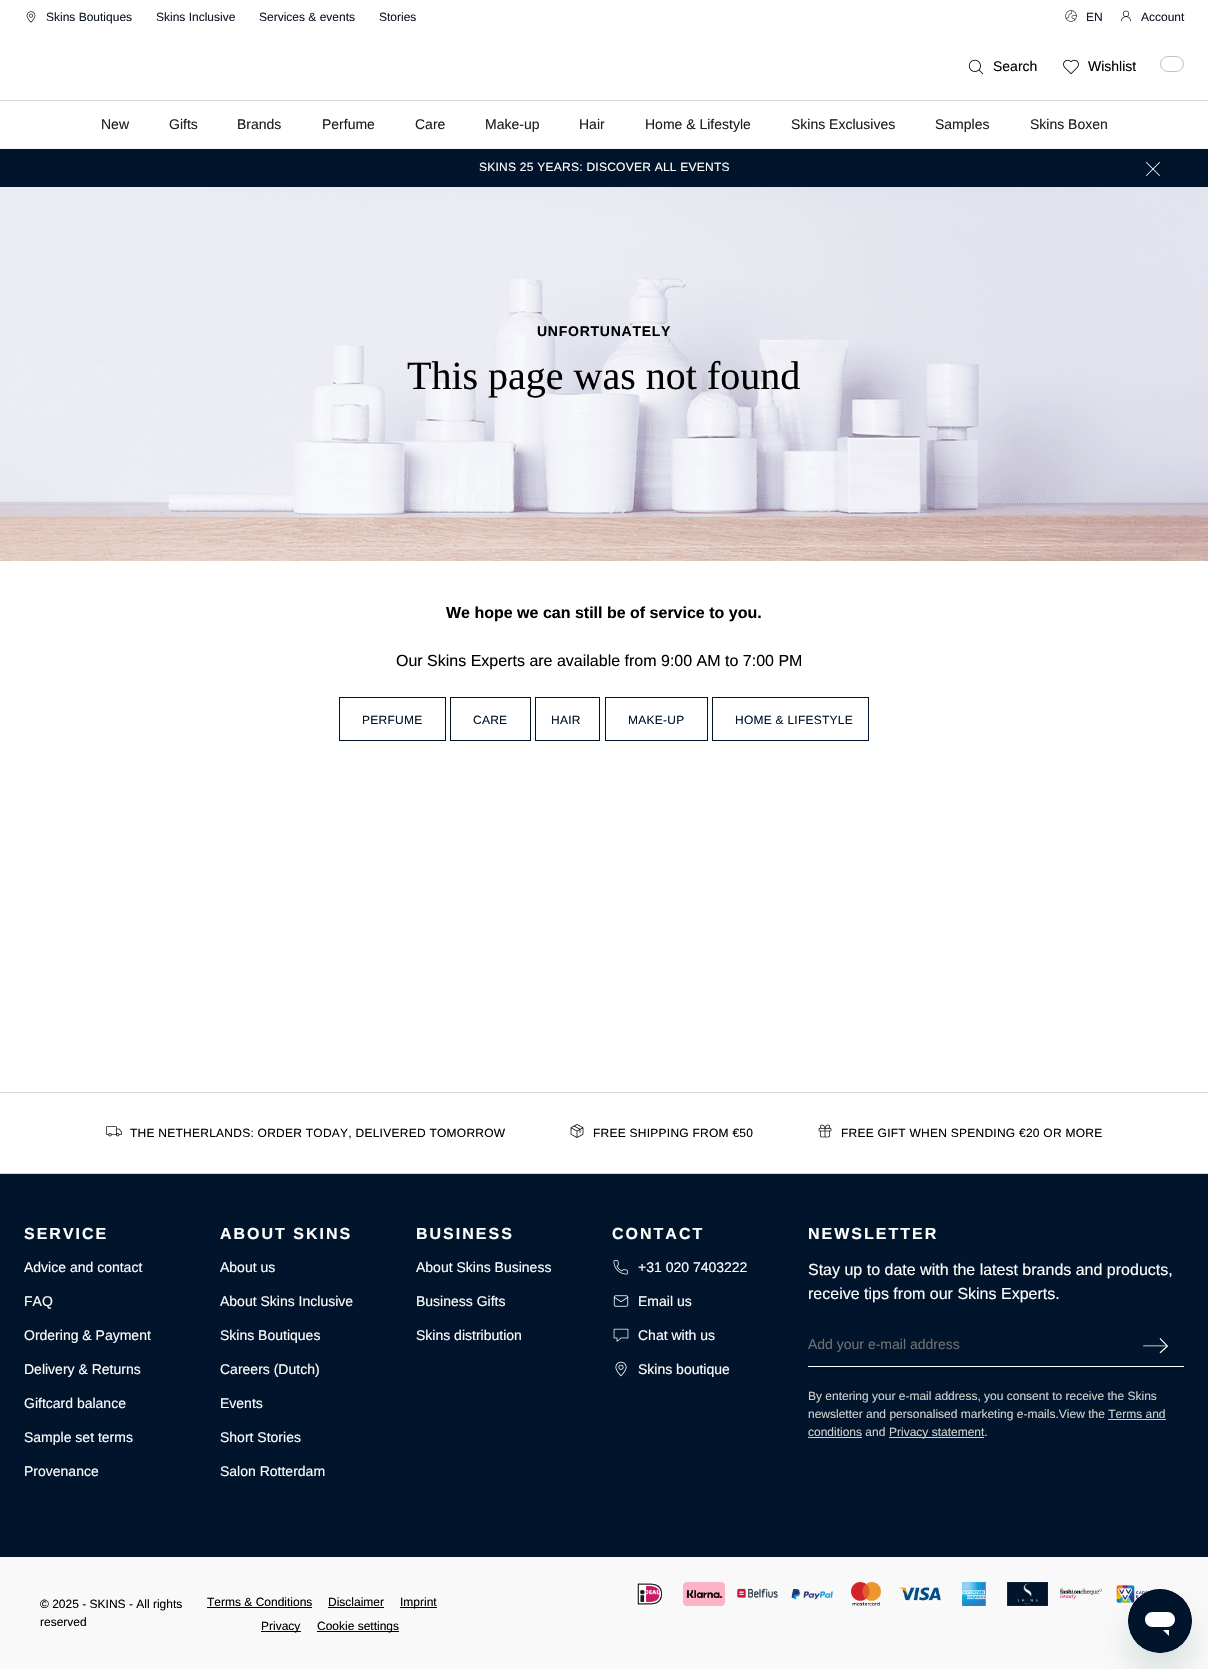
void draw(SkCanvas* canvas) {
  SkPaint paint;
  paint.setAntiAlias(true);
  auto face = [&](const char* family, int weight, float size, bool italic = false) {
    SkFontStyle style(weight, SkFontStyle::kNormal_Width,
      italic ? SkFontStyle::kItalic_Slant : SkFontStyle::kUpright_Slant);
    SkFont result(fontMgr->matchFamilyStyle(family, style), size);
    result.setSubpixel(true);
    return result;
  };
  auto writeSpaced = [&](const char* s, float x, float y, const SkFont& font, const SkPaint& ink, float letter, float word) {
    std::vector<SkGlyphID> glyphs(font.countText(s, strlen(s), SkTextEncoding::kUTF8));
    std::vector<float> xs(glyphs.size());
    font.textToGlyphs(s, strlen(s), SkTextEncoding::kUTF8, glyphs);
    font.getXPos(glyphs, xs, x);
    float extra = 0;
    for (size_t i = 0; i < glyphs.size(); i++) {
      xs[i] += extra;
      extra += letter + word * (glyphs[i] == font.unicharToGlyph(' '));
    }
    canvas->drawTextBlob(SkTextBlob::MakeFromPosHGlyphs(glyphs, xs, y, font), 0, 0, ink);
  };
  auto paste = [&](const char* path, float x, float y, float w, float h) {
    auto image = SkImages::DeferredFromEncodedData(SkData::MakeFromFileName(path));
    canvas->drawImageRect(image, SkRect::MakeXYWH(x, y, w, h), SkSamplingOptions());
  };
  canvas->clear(0xffffffff);
  paste("img/1.png", 26, 11, 10, 12);
  paste("img/2.png", 1065, 10, 12, 12);
  paste("img/3.png", 1121, 10, 10, 12);
  paste("img/4.png", 968, 59, 16, 16);
  paste("img/5.png", 1063, 59, 16, 16);
  paint.setStroke(true);
  paint.setStrokeWidth(1);
  paint.setColor(0xffc3c2c2);
  canvas->drawRoundRect(SkRect::MakeXYWH(1160.5f, 56.5f, 23, 15), 7.5f, 7.5f, paint);
  paint.setStroke(false);
  paint.setColor(0xffd7d7d2);
  canvas->drawRoundRect(SkRect::MakeXYWH(0, 100, 1208, 1), 0.5f, 0.5f, paint);
  paint.setColor(0xfff3f3f3);
  canvas->drawRect(SkRect::MakeXYWH(0, 148, 1208, 1), paint);
  paint.setColor(0xff00142c);
  canvas->drawRect(SkRect::MakeXYWH(0, 149, 1208, 38), paint);
  paste("img/6.png", 1146, 162, 14, 14);
  paste("img/7.png", 0, 187, 1208, 374);
  paint.setStroke(true);
  canvas->drawRect(SkRect::MakeXYWH(339.5f, 697.5f, 106, 43), paint);
  canvas->drawRect(SkRect::MakeXYWH(450.5f, 697.5f, 80, 43), paint);
  canvas->drawRect(SkRect::MakeXYWH(535.5f, 697.5f, 64, 43), paint);
  canvas->drawRect(SkRect::MakeXYWH(605.5f, 697.5f, 102, 43), paint);
  canvas->drawRect(SkRect::MakeXYWH(712.5f, 697.5f, 156, 43), paint);
  paint.setStroke(false);
  {
    const struct { float x, y, w, h; SkColor color; } items[] = {
      {0, 1174, 1208, 383, 0xff00142c},
      {0, 1092, 1208, 1, 0xffd7d7d2},
      {0, 1173, 1208, 1, 0xffd7d7d2},
    };
    for (auto [x, y, w, h, color] : items) {
      paint.setColor(color);
      canvas->drawRect(SkRect::MakeXYWH(x, y, w, h), paint);
    }
  }
  paste("img/8.png", 106, 1126, 16, 11);
  paste("img/9.png", 570, 1124, 14, 14);
  paste("img/10.png", 818, 1124, 14, 14);
  paste("img/11.png", 613, 1260, 15, 15);
  paste("img/12.png", 613, 1295, 16, 12);
  paste("img/13.png", 613, 1328, 16, 14);
  paste("img/14.png", 615, 1361, 12, 16);
  paint.setColor(0xffffffff);
  canvas->drawRect(SkRect::MakeXYWH(808, 1366, 376, 1), paint);
  paste("img/15.png", 1143, 1338, 25, 16);
  {
    const struct { float x, y, w, h; SkColor color; } items[] = {
      {808, 1437, 54, 1, 0xffced1cc},
      {1108, 1419, 58, 1, 0xffced1cc},
      {889, 1437, 95, 1, 0xffced1cc},
      {0, 1557, 1208, 112, 0xfff9f9f9},
    };
    for (auto [x, y, w, h, color] : items) {
      paint.setColor(color);
      canvas->drawRect(SkRect::MakeXYWH(x, y, w, h), paint);
    }
  }
  paste("img/16.png", 636, 1582, 28, 24);
  paste("img/17.png", 683, 1582, 42, 24);
  paste("img/18.png", 737, 1588, 41, 10);
  paste("img/19.png", 791, 1589, 42, 11);
  paste("img/20.png", 851, 1582, 30, 24);
  paste("img/21.png", 899, 1587, 42, 14);
  paste("img/22.png", 962, 1582, 24, 24);
  paste("img/23.png", 1007, 1582, 41, 24);
  paste("img/24.png", 1060, 1588, 42, 12);
  paste("img/25.png", 1116, 1585, 33, 18);
  {
    const struct { float x, y, w, h; SkColor color; } items[] = {
      {207, 1607, 105, 1, 0xff000000},
      {328, 1607, 56, 1, 0xff000000},
      {400, 1607, 37, 1, 0xff000000},
      {261, 1631, 40, 1, 0xff000000},
      {317, 1631, 82, 1, 0xff000000},
    };
    for (auto [x, y, w, h, color] : items) {
      paint.setColor(color);
      canvas->drawRect(SkRect::MakeXYWH(x, y, w, h), paint);
    }
  }
  paint.setColor(0x2617494d);
  paint.setMaskFilter(SkMaskFilter::MakeBlur(kNormal_SkBlurStyle, 15));
  canvas->drawRoundRect(SkRect::MakeXYWH(1128, 1609, 64, 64), 32, 32, paint);
  paint.setMaskFilter(nullptr);
  paste("img/26.png", 1128, 1589, 64, 64);
  auto f0 = face("Liberation Sans", 400, 12);
  paint.setColor(0xff111827);
  {
    const struct { const char* s; float x, y; } items[] = {
      {"Skins Boutiques", 46, 21},
      {"Skins Inclusive", 156, 21},
      {"Services & events", 259, 21},
      {"Stories", 379, 21},
      {"EN", 1086, 21},
      {"Account", 1141, 21},
    };
    for (auto [s, x, y] : items) {
      canvas->drawString(s, x, y, f0, paint);
    }
  }
  auto f1 = face("Liberation Sans", 400, 14);
  paint.setColor(0xff000000);
  canvas->drawString("Search", 993, 71, f1, paint);
  canvas->drawString("Wishlist", 1088, 71, f1, paint);
  paint.setColor(0xff1e1e1e);
  {
    const struct { const char* s; float x, y; } items[] = {
      {"New", 101, 129},
      {"Gifts", 169, 129},
      {"Brands", 237, 129},
      {"Perfume", 322, 129},
      {"Care", 415, 129},
      {"Make-up", 485, 129},
      {"Hair", 579, 129},
      {"Home & Lifestyle", 645, 129},
      {"Skins Exclusives", 791, 129},
      {"Samples", 935, 129},
      {"Skins Boxen", 1030, 129},
    };
    for (auto [s, x, y] : items) {
      canvas->drawString(s, x, y, f1, paint);
    }
  }
  paint.setColor(0xffffffff);
  writeSpaced("SKINS 25 YEARS: DISCOVER ALL EVENTS", 479, 171, f0, paint, 0.25f, 0);
  auto f2 = face("Liberation Sans", 700, 14);
  paint.setColor(0xff000000);
  writeSpaced("UNFORTUNATELY", 537, 336, f2, paint, 0.75f, 0);
  auto f3 = face("Liberation Serif", 400, 40);
  canvas->drawString("This page was not found", 407, 389, f3, paint);
  auto f4 = face("Liberation Sans", 700, 16);
  canvas->drawString("We hope we can still be of service to you.", 446, 618, f4, paint);
  auto f5 = face("Liberation Sans", 400, 16);
  canvas->drawString("Our Skins Experts are available from 9:00 AM to 7:00 PM", 396, 666, f5, paint);
  paint.setColor(0xff00142c);
  {
    const struct { const char* s; float x, y; } items[] = {
      {"PERFUME", 362, 724},
      {"CARE", 473, 724},
      {"HAIR", 551, 724},
      {"MAKE-UP", 628, 724},
      {"HOME & LIFESTYLE", 735, 724},
    };
    for (auto [s, x, y] : items) {
      writeSpaced(s, x, y, f0, paint, 0.25f, 0);
    }
  }
  paint.setColor(0xff000000);
  {
    const struct { const char* s; float x, y; } items[] = {
      {"THE NETHERLANDS: ORDER TODAY, DELIVERED TOMORROW", 130, 1137},
      {"FREE SHIPPING FROM €50", 593, 1137},
      {"FREE GIFT WHEN SPENDING €20 OR MORE", 841, 1137},
    };
    for (auto [s, x, y] : items) {
      writeSpaced(s, x, y, f0, paint, 0.25f, 0);
    }
  }
  paint.setColor(0xffffffff);
  writeSpaced("SERVICE", 24, 1239, f4, paint, 2, 0);
  {
    const struct { const char* s; float x, y; } items[] = {
      {"Advice and contact", 24, 1272},
      {"FAQ", 24, 1306},
      {"Ordering & Payment", 24, 1340},
      {"Delivery & Returns", 24, 1374},
      {"Giftcard balance", 24, 1408},
      {"Sample set terms", 24, 1442},
      {"Provenance", 24, 1476},
    };
    for (auto [s, x, y] : items) {
      canvas->drawString(s, x, y, f1, paint);
    }
  }
  writeSpaced("ABOUT SKINS", 220, 1239, f4, paint, 2, 0);
  {
    const struct { const char* s; float x, y; } items[] = {
      {"About us", 220, 1272},
      {"About Skins Inclusive", 220, 1306},
      {"Skins Boutiques", 220, 1340},
      {"Careers (Dutch)", 220, 1374},
      {"Events", 220, 1408},
      {"Short Stories", 220, 1442},
      {"Salon Rotterdam", 220, 1476},
    };
    for (auto [s, x, y] : items) {
      canvas->drawString(s, x, y, f1, paint);
    }
  }
  writeSpaced("BUSINESS", 416, 1239, f4, paint, 2, 0);
  {
    const struct { const char* s; float x, y; } items[] = {
      {"About Skins Business", 416, 1272},
      {"Business Gifts", 416, 1306},
      {"Skins distribution", 416, 1340},
    };
    for (auto [s, x, y] : items) {
      canvas->drawString(s, x, y, f1, paint);
    }
  }
  writeSpaced("CONTACT", 612, 1239, f4, paint, 2, 0);
  {
    const struct { const char* s; float x, y; } items[] = {
      {"+31 020 7403222", 638, 1272},
      {"Email us", 638, 1306},
      {"Chat with us", 638, 1340},
      {"Skins boutique", 638, 1374},
    };
    for (auto [s, x, y] : items) {
      canvas->drawString(s, x, y, f1, paint);
    }
  }
  writeSpaced("NEWSLETTER", 808, 1239, f4, paint, 2, 0);
  canvas->drawString("Stay up to date with the latest brands and products,", 808, 1275, f5, paint);
  canvas->drawString("receive tips from our Skins Experts.", 808, 1299, f5, paint);
  paint.setColor(0xff717070);
  canvas->drawString("Add your e-mail address", 808, 1349, f1, paint);
  paint.setColor(0xffced1cc);
  {
    const struct { const char* s; float x, y; } items[] = {
      {"By entering your e-mail address, you consent to receive the Skins", 808, 1400},
      {"newsletter and personalised marketing e-mails.View the Terms and", 808, 1418},
      {"conditions and", 808, 1436},
      {"Privacy statement.", 889, 1436},
    };
    for (auto [s, x, y] : items) {
      canvas->drawString(s, x, y, f0, paint);
    }
  }
  paint.setColor(0xff000000);
  {
    const struct { const char* s; float x, y; } items[] = {
      {"© 2025 - SKINS - All rights", 40, 1608},
      {"reserved", 40, 1626},
      {"Terms & Conditions", 207, 1606},
      {"Disclaimer", 328, 1606},
      {"Imprint", 400, 1606},
      {"Privacy", 261, 1630},
      {"Cookie settings", 317, 1630},
    };
    for (auto [s, x, y] : items) {
      canvas->drawString(s, x, y, f0, paint);
    }
  }
}
